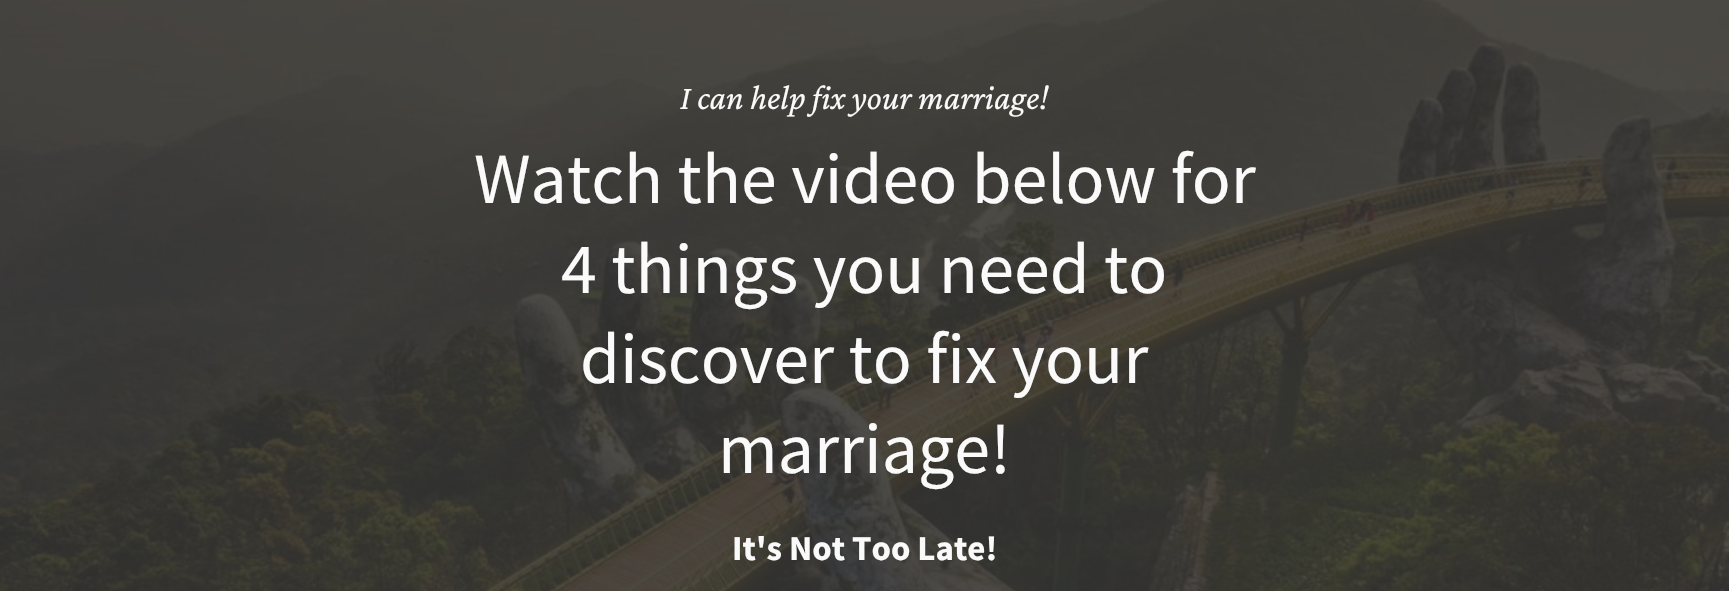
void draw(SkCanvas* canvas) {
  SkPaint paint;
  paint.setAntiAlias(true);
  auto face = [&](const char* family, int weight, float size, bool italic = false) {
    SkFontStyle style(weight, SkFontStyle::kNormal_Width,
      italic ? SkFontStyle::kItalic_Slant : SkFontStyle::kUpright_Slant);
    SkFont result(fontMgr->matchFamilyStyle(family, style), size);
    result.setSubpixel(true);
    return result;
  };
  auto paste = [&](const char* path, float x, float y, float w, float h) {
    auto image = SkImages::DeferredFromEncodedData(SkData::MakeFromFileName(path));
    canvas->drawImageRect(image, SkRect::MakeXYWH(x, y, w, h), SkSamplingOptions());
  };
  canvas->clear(0xffffffff);
  paste("img/1.png", 0, 0, 1729, 591);
  auto f0 = face("Crimson Pro", 400, 35, true);
  paint.setColor(0xfffafafa);
  canvas->drawString("I can help fix your marriage!", 680, 109, f0, paint);
  auto f1 = face("Source Sans Pro", 400, 72);
  {
    const struct { const char* s; float x, y; } items[] = {
      {"Watch the video below for", 474, 203},
      {"4 things you need to", 561, 293},
      {"discover to fix your", 580, 383},
      {"marriage!", 718, 473},
    };
    for (auto [s, x, y] : items) {
      canvas->drawString(s, x, y, f1, paint);
    }
  }
  auto f2 = face("Source Sans Pro", 700, 35);
  canvas->drawString("It's Not Too Late!", 732, 560, f2, paint);
}
